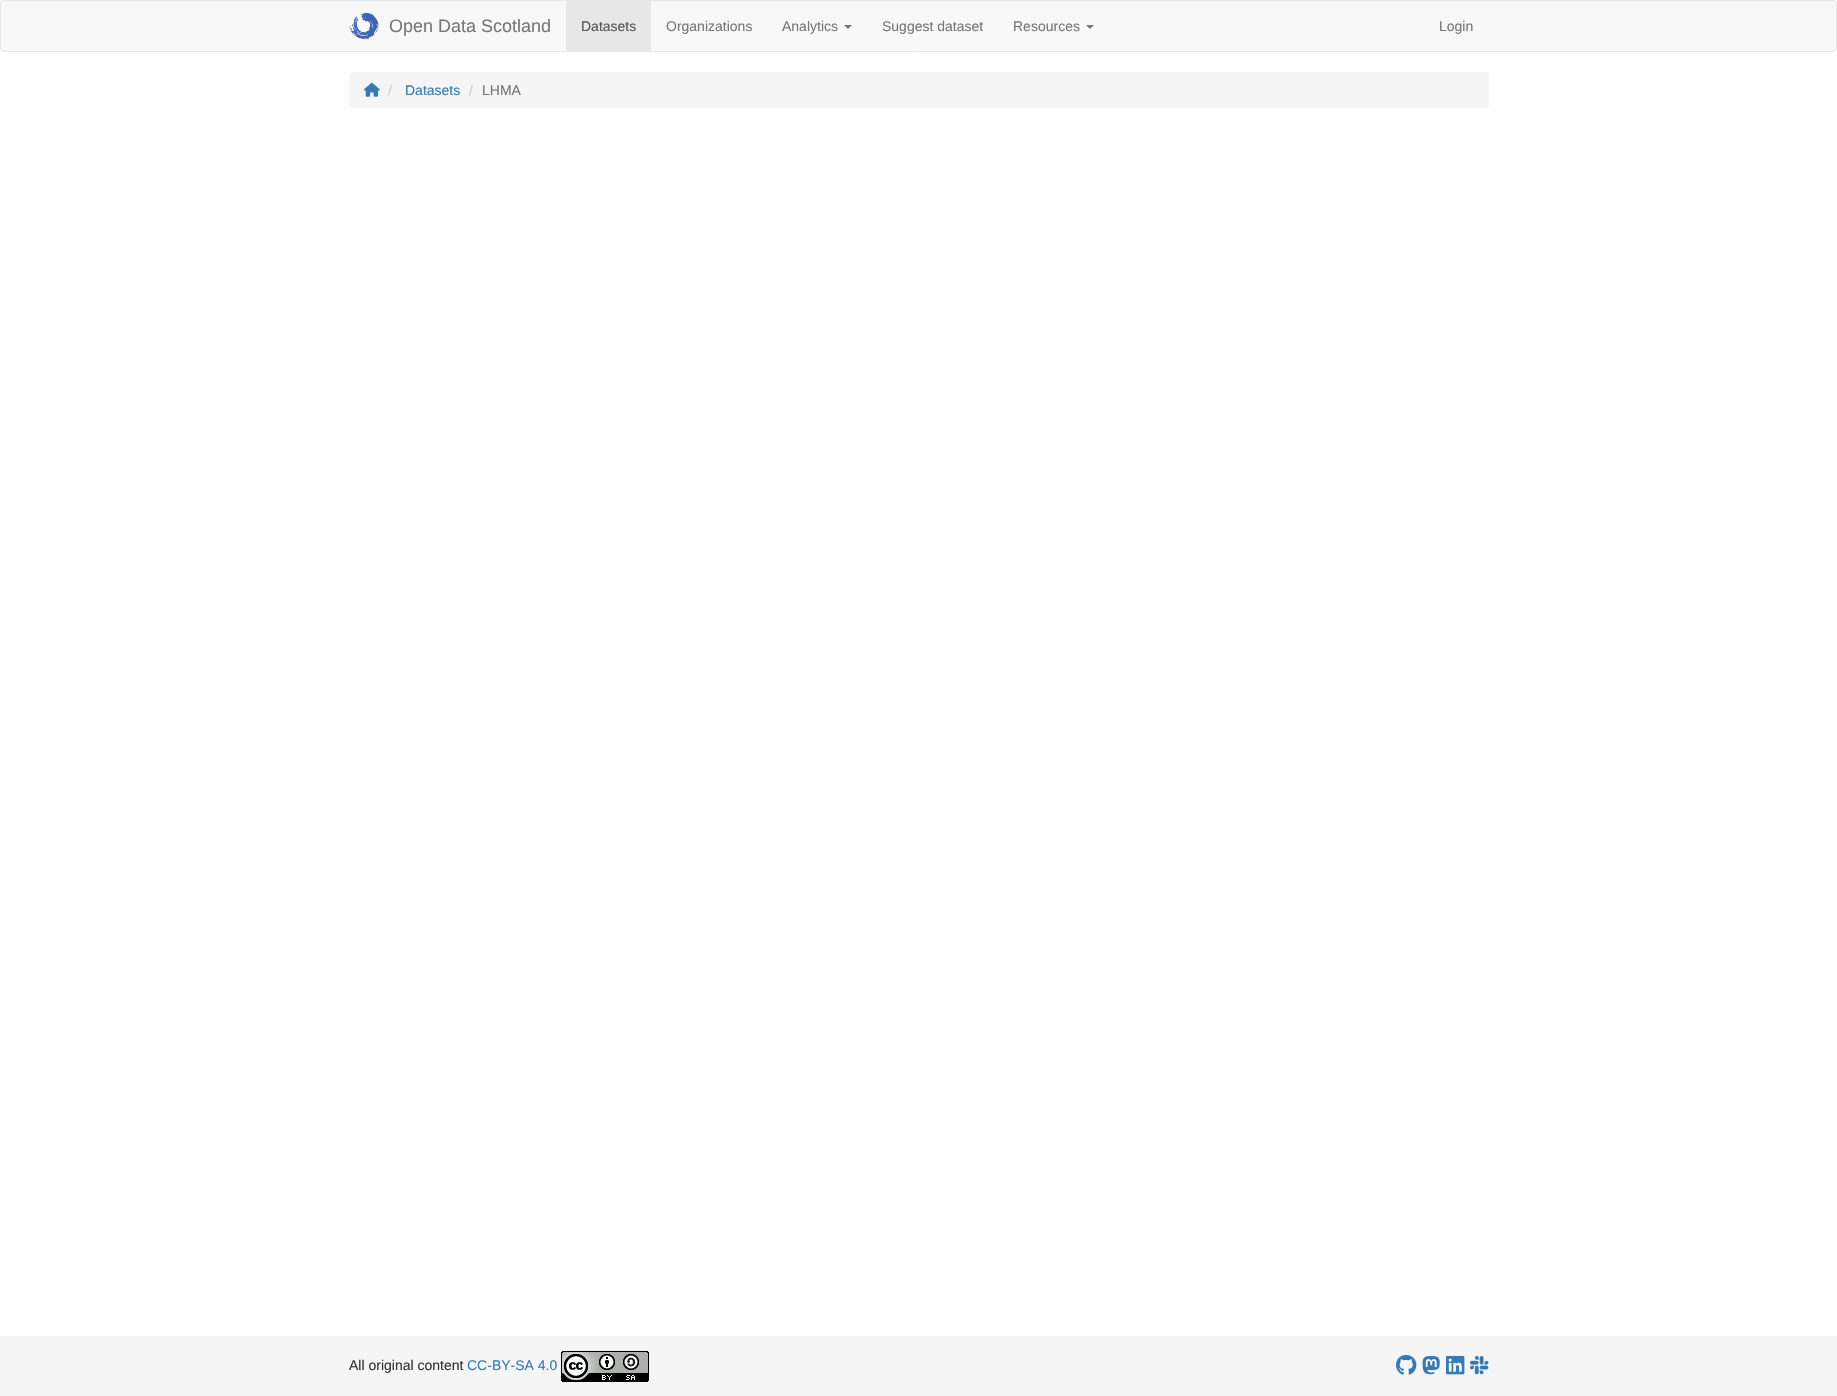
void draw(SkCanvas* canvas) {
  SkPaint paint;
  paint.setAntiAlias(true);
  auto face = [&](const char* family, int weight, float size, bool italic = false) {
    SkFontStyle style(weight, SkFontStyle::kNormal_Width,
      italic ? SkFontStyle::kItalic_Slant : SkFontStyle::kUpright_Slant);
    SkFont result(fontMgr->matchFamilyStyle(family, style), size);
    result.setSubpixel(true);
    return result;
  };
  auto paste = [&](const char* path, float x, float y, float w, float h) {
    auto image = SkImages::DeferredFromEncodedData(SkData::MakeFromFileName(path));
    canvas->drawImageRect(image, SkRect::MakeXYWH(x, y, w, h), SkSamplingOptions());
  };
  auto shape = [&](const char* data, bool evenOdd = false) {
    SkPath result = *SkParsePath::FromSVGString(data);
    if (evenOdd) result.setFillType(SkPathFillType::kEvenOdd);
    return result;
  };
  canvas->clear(0xffffffff);
  paint.setColor(0xfff8f8f8);
  canvas->drawRoundRect(SkRect::MakeXYWH(0.5f, 0.5f, 1836, 51), 3.5f, 3.5f, paint);
  paint.setStroke(true);
  paint.setStrokeWidth(1);
  paint.setColor(0xffe7e7e7);
  canvas->drawRoundRect(SkRect::MakeXYWH(0.5f, 0.5f, 1836, 51), 3.5f, 3.5f, paint);
  paste("img/1.png", 349, 12, 30, 28);
  paint.setStroke(false);
  canvas->drawRect(SkRect::MakeXYWH(566, 1, 85, 50), paint);
  paint.setColor(0xff777777);
  canvas->drawPath(shape("M844 25H852L848 29Z"), paint);
  canvas->drawPath(shape("M1086 25H1094L1090 29Z"), paint);
  paint.setColor(0xfff5f5f5);
  canvas->drawRoundRect(SkRect::MakeXYWH(349, 72, 1140, 36), 4, 4, paint);
  paste("img/2.png", 364, 82, 16, 15);
  canvas->drawRect(SkRect::MakeXYWH(0, 1336, 1837, 60), paint);
  paste("img/3.png", 561, 1351, 88, 31);
  paste("img/4.png", 1396, 1355, 21, 20);
  paste("img/5.png", 1422, 1355, 18, 20);
  paste("img/6.png", 1446, 1355, 19, 20);
  paste("img/7.png", 1470, 1356, 19, 19);
  auto f0 = face("Liberation Sans", 400, 18);
  paint.setColor(0xff777777);
  canvas->drawString("Open Data Scotland", 389, 32, f0, paint);
  auto f1 = face("Liberation Sans", 400, 14);
  paint.setColor(0xff555555);
  canvas->drawString("Datasets", 581, 31, f1, paint);
  paint.setColor(0xff777777);
  {
    const struct { const char* s; float x, y; } items[] = {
      {"Organizations", 666, 31},
      {"Analytics", 782, 31},
      {"Suggest dataset", 882, 31},
      {"Resources", 1013, 31},
      {"Login", 1439, 31},
    };
    for (auto [s, x, y] : items) {
      canvas->drawString(s, x, y, f1, paint);
    }
  }
  paint.setColor(0xffcccccc);
  canvas->drawString("/", 388, 95, f1, paint);
  paint.setColor(0xff337ab7);
  canvas->drawString("Datasets", 405, 95, f1, paint);
  paint.setColor(0xffcccccc);
  canvas->drawString("/", 469, 95, f1, paint);
  paint.setColor(0xff777777);
  canvas->drawString("LHMA", 482, 95, f1, paint);
  paint.setColor(0xff333333);
  canvas->drawString("All original content", 349, 1370, f1, paint);
  paint.setColor(0xff337ab7);
  canvas->drawString("CC-BY-SA 4.0", 467, 1370, f1, paint);
}
